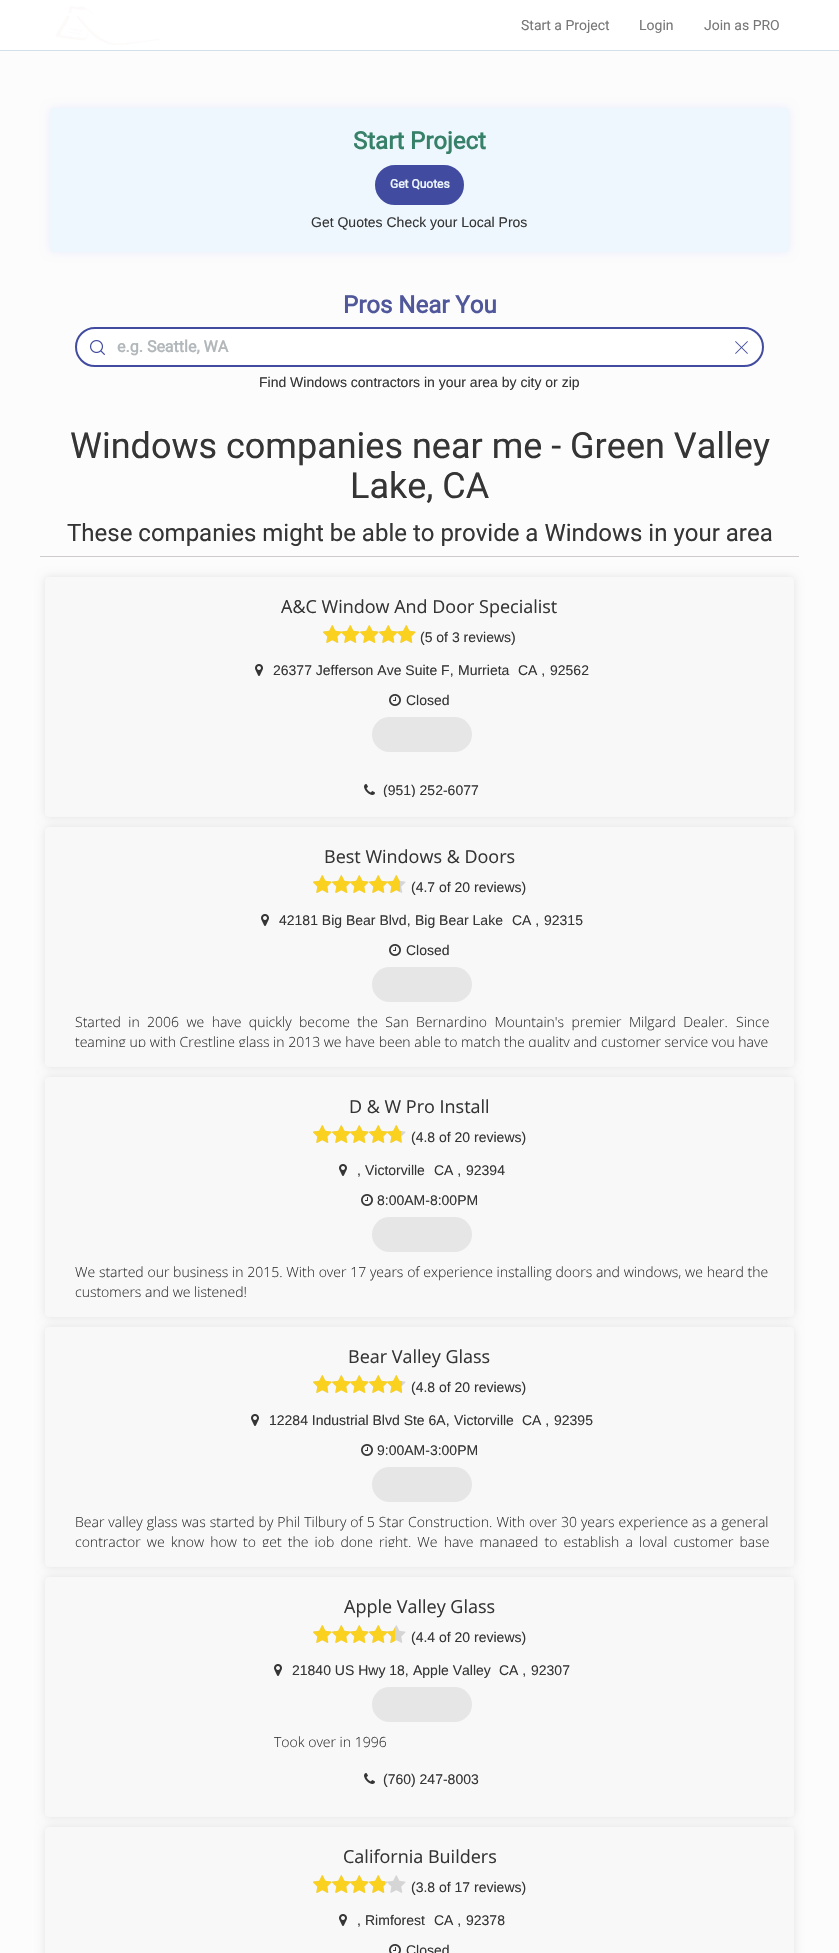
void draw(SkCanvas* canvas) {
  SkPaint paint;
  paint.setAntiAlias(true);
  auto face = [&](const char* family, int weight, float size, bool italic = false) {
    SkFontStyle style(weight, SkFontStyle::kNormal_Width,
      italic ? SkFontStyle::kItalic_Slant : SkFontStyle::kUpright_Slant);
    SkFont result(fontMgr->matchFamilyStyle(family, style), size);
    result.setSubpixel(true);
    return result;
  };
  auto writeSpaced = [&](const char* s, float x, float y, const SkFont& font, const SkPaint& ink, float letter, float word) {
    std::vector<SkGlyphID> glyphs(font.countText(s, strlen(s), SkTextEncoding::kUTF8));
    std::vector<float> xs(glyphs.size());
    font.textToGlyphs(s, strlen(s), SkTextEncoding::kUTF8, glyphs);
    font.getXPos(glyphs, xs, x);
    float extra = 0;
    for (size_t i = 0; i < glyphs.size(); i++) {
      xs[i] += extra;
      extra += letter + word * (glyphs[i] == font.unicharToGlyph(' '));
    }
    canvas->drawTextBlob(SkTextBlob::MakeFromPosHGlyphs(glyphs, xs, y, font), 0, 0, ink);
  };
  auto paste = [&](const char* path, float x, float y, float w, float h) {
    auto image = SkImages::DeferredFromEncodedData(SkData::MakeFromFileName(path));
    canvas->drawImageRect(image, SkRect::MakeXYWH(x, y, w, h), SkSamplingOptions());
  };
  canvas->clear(0xfffcfcfc);
  paint.setColor(0xffffffff);
  canvas->drawRect(SkRect::MakeXYWH(0, 0, 839, 50), paint);
  paint.setColor(0xffd3e0e9);
  canvas->drawRect(SkRect::MakeXYWH(0, 50, 839, 1), paint);
  paste("img/1.png", 56, 6, 104, 39);
  paint.setColor(0xffebedfc);
  paint.setMaskFilter(SkMaskFilter::MakeBlur(kNormal_SkBlurStyle, 5));
  canvas->drawRoundRect(SkRect::MakeXYWH(50, 108, 739, 144), 4, 4, paint);
  paint.setMaskFilter(nullptr);
  paint.setColor(0xffeef7fe);
  canvas->drawRoundRect(SkRect::MakeXYWH(50, 108, 739, 144), 4, 4, paint);
  paint.setColor(0xff414b9f);
  canvas->drawRoundRect(SkRect::MakeXYWH(374, 164, 91, 42), 21, 21, paint);
  paint.setStroke(true);
  paint.setStrokeWidth(2);
  paint.setColor(0xffeef7fe);
  canvas->drawRoundRect(SkRect::MakeXYWH(374, 164, 91, 42), 21, 21, paint);
  paint.setStroke(false);
  paint.setColor(0xffffffff);
  canvas->drawRoundRect(SkRect::MakeXYWH(76, 328, 687, 38), 19, 19, paint);
  paint.setStroke(true);
  paint.setColor(0xff414b9f);
  canvas->drawRoundRect(SkRect::MakeXYWH(76, 328, 687, 38), 19, 19, paint);
  paste("img/2.png", 90, 340, 15, 15);
  paste("img/3.png", 735, 341, 13, 13);
  paint.setStroke(false);
  paint.setColor(0xffcecccc);
  canvas->drawRect(SkRect::MakeXYWH(40, 556, 759, 1), paint);
  paint.setColor(0x1a000000);
  paint.setMaskFilter(SkMaskFilter::MakeBlur(kNormal_SkBlurStyle, 5));
  canvas->drawRoundRect(SkRect::MakeXYWH(45, 577, 749, 240), 4, 4, paint);
  paint.setMaskFilter(nullptr);
  paint.setColor(0xfff8f8f8);
  canvas->drawRoundRect(SkRect::MakeXYWH(45, 577, 749, 240), 4, 4, paint);
  paste("img/4.png", 323, 625, 19, 18);
  paste("img/8.png", 341, 625, 19, 18);
  paste("img/5.png", 323, 625, 19, 18);
  paste("img/6.png", 341, 625, 19, 18);
  paste("img/4.png", 360, 625, 19, 18);
  paste("img/7.png", 360, 625, 19, 18);
  paste("img/4.png", 379, 625, 19, 18);
  paste("img/8.png", 397, 625, 19, 18);
  paste("img/5.png", 379, 625, 19, 18);
  paste("img/6.png", 397, 625, 19, 18);
  paste("img/9.png", 255, 664, 8, 12);
  paste("img/10.png", 389, 694, 12, 12);
  paint.setColor(0xffe6e6e6);
  canvas->drawRoundRect(SkRect::MakeXYWH(372, 717, 100, 35), 17.5f, 17.5f, paint);
  paste("img/11.png", 364, 784, 11, 11);
  paint.setColor(0x1a000000);
  paint.setMaskFilter(SkMaskFilter::MakeBlur(kNormal_SkBlurStyle, 5));
  canvas->drawRoundRect(SkRect::MakeXYWH(45, 827, 749, 240), 4, 4, paint);
  paint.setMaskFilter(nullptr);
  paint.setColor(0xfff8f8f8);
  canvas->drawRoundRect(SkRect::MakeXYWH(45, 827, 749, 240), 4, 4, paint);
  paste("img/4.png", 313, 875, 19, 18);
  paste("img/7.png", 313, 875, 19, 18);
  paste("img/4.png", 332, 875, 19, 18);
  paste("img/8.png", 350, 875, 19, 18);
  paste("img/5.png", 332, 875, 19, 18);
  paste("img/6.png", 350, 875, 19, 18);
  paste("img/4.png", 369, 875, 19, 18);
  paste("img/8.png", 387, 875, 19, 18);
  paste("img/5.png", 369, 875, 19, 18);
  paste("img/12.png", 387, 875, 13, 18);
  paste("img/9.png", 261, 914, 8, 12);
  paste("img/10.png", 389, 944, 12, 12);
  paint.setColor(0xffe6e6e6);
  canvas->drawRoundRect(SkRect::MakeXYWH(372, 967, 100, 35), 17.5f, 17.5f, paint);
  paint.setColor(0x1a000000);
  paint.setMaskFilter(SkMaskFilter::MakeBlur(kNormal_SkBlurStyle, 5));
  canvas->drawRoundRect(SkRect::MakeXYWH(45, 1077, 749, 240), 4, 4, paint);
  paint.setMaskFilter(nullptr);
  paint.setColor(0xfff8f8f8);
  canvas->drawRoundRect(SkRect::MakeXYWH(45, 1077, 749, 240), 4, 4, paint);
  paste("img/4.png", 313, 1125, 19, 18);
  paste("img/7.png", 313, 1125, 19, 18);
  paste("img/4.png", 332, 1125, 19, 18);
  paste("img/8.png", 350, 1125, 19, 18);
  paste("img/5.png", 332, 1125, 19, 18);
  paste("img/6.png", 350, 1125, 19, 18);
  paste("img/4.png", 369, 1125, 19, 18);
  paste("img/8.png", 387, 1125, 19, 18);
  paste("img/5.png", 369, 1125, 19, 18);
  paste("img/13.png", 387, 1125, 14, 18);
  paste("img/9.png", 339, 1164, 8, 12);
  paste("img/10.png", 361, 1194, 12, 12);
  paint.setColor(0xffe6e6e6);
  canvas->drawRoundRect(SkRect::MakeXYWH(372, 1217, 100, 35), 17.5f, 17.5f, paint);
  paint.setColor(0x1a000000);
  paint.setMaskFilter(SkMaskFilter::MakeBlur(kNormal_SkBlurStyle, 5));
  canvas->drawRoundRect(SkRect::MakeXYWH(45, 1327, 749, 240), 4, 4, paint);
  paint.setMaskFilter(nullptr);
  paint.setColor(0xfff8f8f8);
  canvas->drawRoundRect(SkRect::MakeXYWH(45, 1327, 749, 240), 4, 4, paint);
  paste("img/4.png", 313, 1375, 19, 18);
  paste("img/7.png", 313, 1375, 19, 18);
  paste("img/4.png", 332, 1375, 19, 18);
  paste("img/8.png", 350, 1375, 19, 18);
  paste("img/5.png", 332, 1375, 19, 18);
  paste("img/6.png", 350, 1375, 19, 18);
  paste("img/4.png", 369, 1375, 19, 18);
  paste("img/8.png", 387, 1375, 19, 18);
  paste("img/5.png", 369, 1375, 19, 18);
  paste("img/14.png", 387, 1375, 15, 18);
  paste("img/9.png", 251, 1414, 8, 12);
  paste("img/10.png", 361, 1444, 12, 12);
  paint.setColor(0xffe6e6e6);
  canvas->drawRoundRect(SkRect::MakeXYWH(372, 1467, 100, 35), 17.5f, 17.5f, paint);
  paint.setColor(0x1a000000);
  paint.setMaskFilter(SkMaskFilter::MakeBlur(kNormal_SkBlurStyle, 5));
  canvas->drawRoundRect(SkRect::MakeXYWH(45, 1577, 749, 240), 4, 4, paint);
  paint.setMaskFilter(nullptr);
  paint.setColor(0xfff8f8f8);
  canvas->drawRoundRect(SkRect::MakeXYWH(45, 1577, 749, 240), 4, 4, paint);
  paste("img/4.png", 313, 1625, 19, 18);
  paste("img/7.png", 313, 1625, 19, 18);
  paste("img/4.png", 332, 1625, 19, 18);
  paste("img/8.png", 350, 1625, 19, 18);
  paste("img/5.png", 332, 1625, 19, 18);
  paste("img/6.png", 350, 1625, 19, 18);
  paste("img/4.png", 369, 1625, 19, 18);
  paste("img/8.png", 387, 1625, 19, 18);
  paste("img/5.png", 369, 1625, 19, 18);
  paste("img/15.png", 387, 1627, 8, 16);
  paste("img/9.png", 274, 1664, 8, 12);
  paint.setColor(0xffe6e6e6);
  canvas->drawRoundRect(SkRect::MakeXYWH(372, 1687, 100, 35), 17.5f, 17.5f, paint);
  paste("img/11.png", 364, 1773, 11, 11);
  paint.setColor(0x1a000000);
  paint.setMaskFilter(SkMaskFilter::MakeBlur(kNormal_SkBlurStyle, 5));
  canvas->drawRoundRect(SkRect::MakeXYWH(45, 1827, 749, 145), 4, 4, paint);
  paint.setMaskFilter(nullptr);
  paint.setColor(0xfff8f8f8);
  canvas->drawRoundRect(SkRect::MakeXYWH(45, 1827, 749, 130), 4, 4, paint);
  paste("img/4.png", 313, 1875, 19, 18);
  paste("img/7.png", 313, 1875, 19, 18);
  paste("img/4.png", 332, 1875, 19, 18);
  paste("img/8.png", 350, 1875, 19, 18);
  paste("img/5.png", 332, 1875, 19, 18);
  paste("img/6.png", 350, 1875, 19, 18);
  paste("img/4.png", 369, 1875, 19, 18);
  paste("img/16.png", 369, 1875, 16, 18);
  paste("img/8.png", 387, 1875, 19, 18);
  paste("img/9.png", 339, 1914, 8, 12);
  paste("img/17.png", 389, 1944, 12, 9);
  auto f0 = face("Roboto", 400, 14);
  paint.setColor(0xff777777);
  {
    const struct { const char* s; float x, y; } items[] = {
      {"Start a Project", 521, 30},
      {"Login", 639, 30},
      {"Join as PRO", 704, 30},
    };
    for (auto [s, x, y] : items) {
      canvas->drawString(s, x, y, f0, paint);
    }
  }
  auto f1 = face("Roboto", 700, 24);
  paint.setColor(0xff378169);
  canvas->drawString("Start Project", 353, 149, f1, paint);
  auto f2 = face("Roboto", 700, 12);
  paint.setColor(0xffeef7fe);
  canvas->drawString("Get Quotes", 390, 188, f2, paint);
  auto f3 = face("Liberation Sans", 400, 14);
  paint.setColor(0xff353535);
  canvas->drawString("Get Quotes Check your Local Pros", 311, 227, f3, paint);
  paint.setColor(0xff50589b);
  canvas->drawString("Pros Near You", 343, 313, f1, paint);
  auto f4 = face("Roboto", 700, 16);
  paint.setColor(0xffb1b7ba);
  canvas->drawString("e.g. Seattle, WA", 117, 352, f4, paint);
  paint.setColor(0xff353535);
  canvas->drawString("Find Windows contractors in your area by city or zip", 259, 387, f3, paint);
  auto f5 = face("Roboto", 400, 36);
  canvas->drawString("Windows companies near me - Green Valley", 70, 458, f5, paint);
  canvas->drawString("Lake, CA", 350, 498, f5, paint);
  auto f6 = face("Roboto", 400, 24);
  canvas->drawString("These companies might be able to provide a Windows in your area", 67, 541, f6, paint);
  auto f7 = face("Open Sans", 400, 18);
  canvas->drawString("A&C Window And Door Specialist", 281, 613, f7, paint);
  {
    const struct { const char* s; float x, y; } items[] = {
      {"(5 of 3 reviews)", 420, 642},
      {"26377 Jefferson Ave Suite F,", 273, 675},
      {"Murrieta", 458, 675},
      {"CA ,", 518, 675},
      {"92562", 550, 675},
      {"Closed", 406, 705},
    };
    for (auto [s, x, y] : items) {
      canvas->drawString(s, x, y, f3, paint);
    }
  }
  canvas->save();
  canvas->clipRect(SkRect::MakeXYWH(190, 597, 459, 200));
  canvas->drawString("(951) 252-6077", 383, 795, f3, paint);
  canvas->restore();
  canvas->drawString("Best Windows & Doors", 324, 863, f7, paint);
  {
    const struct { const char* s; float x, y; } items[] = {
      {"(4.7 of 20 reviews)", 411, 892},
      {"42181 Big Bear Blvd,", 279, 925},
      {"Big Bear Lake", 415, 925},
      {"CA ,", 512, 925},
      {"92315", 544, 925},
      {"Closed", 406, 955},
    };
    for (auto [s, x, y] : items) {
      canvas->drawString(s, x, y, f3, paint);
    }
  }
  auto f8 = face("Open Sans", 300, 14);
  writeSpaced("Started in 2006 we have quickly become the San Bernardino Mountain's premier Milgard Dealer.", 75, 1027, f8, paint, 0, 3.75f);
  canvas->drawString("Since", 736, 1027, f8, paint);
  canvas->save();
  canvas->clipRect(SkRect::MakeXYWH(55, 847, 729, 200));
  canvas->drawString("teaming up with Crestline glass in 2013 we have been able to match the quality and customer service you have", 75, 1047, f8, paint);
  canvas->restore();
  canvas->drawString("D & W Pro Install", 349, 1113, f7, paint);
  {
    const struct { const char* s; float x, y; } items[] = {
      {"(4.8 of 20 reviews)", 411, 1142},
      {",", 357, 1175},
      {"Victorville", 365, 1175},
      {"CA ,", 434, 1175},
      {"92394", 466, 1175},
      {"8:00AM-8:00PM", 377, 1205},
    };
    for (auto [s, x, y] : items) {
      canvas->drawString(s, x, y, f3, paint);
    }
  }
  writeSpaced("We started our business in 2015. With over 17 years of experience installing doors and windows, we heard the", 75, 1277, f8, paint, 0, 0.1f);
  canvas->save();
  canvas->clipRect(SkRect::MakeXYWH(55, 1097, 729, 200));
  canvas->drawString("customers and we listened!", 75, 1297, f8, paint);
  canvas->restore();
  canvas->drawString("Bear Valley Glass", 348, 1363, f7, paint);
  {
    const struct { const char* s; float x, y; } items[] = {
      {"(4.8 of 20 reviews)", 411, 1392},
      {"12284 Industrial Blvd Ste 6A,", 269, 1425},
      {"Victorville", 454, 1425},
      {"CA ,", 522, 1425},
      {"92395", 554, 1425},
      {"9:00AM-3:00PM", 377, 1455},
    };
    for (auto [s, x, y] : items) {
      canvas->drawString(s, x, y, f3, paint);
    }
  }
  writeSpaced("Bear valley glass was started by Phil Tilbury of 5 Star Construction. With over 30 years experience as a general", 75, 1527, f8, paint, 0, 0.4f);
  canvas->save();
  canvas->clipRect(SkRect::MakeXYWH(55, 1347, 729, 200));
  writeSpaced("contractor we know how to get the job done right. We have managed to establish a loyal customer base", 75, 1547, f8, paint, 0, 2.5f);
  canvas->restore();
  canvas->drawString("Apple Valley Glass", 344, 1613, f7, paint);
  {
    const struct { const char* s; float x, y; } items[] = {
      {"(4.4 of 20 reviews)", 411, 1642},
      {"21840 US Hwy 18,", 292, 1675},
      {"Apple Valley", 413, 1675},
      {"CA ,", 499, 1675},
      {"92307", 531, 1675},
    };
    for (auto [s, x, y] : items) {
      canvas->drawString(s, x, y, f3, paint);
    }
  }
  canvas->drawString("Took over in 1996", 274, 1747, f8, paint);
  canvas->drawString("(760) 247-8003", 383, 1784, f3, paint);
  canvas->drawString("California Builders", 343, 1863, f7, paint);
  {
    const struct { const char* s; float x, y; } items[] = {
      {"(3.8 of 17 reviews)", 411, 1892},
      {",", 357, 1925},
      {"Rimforest", 365, 1925},
      {"CA ,", 434, 1925},
      {"92378", 466, 1925},
      {"Closed", 406, 1955},
    };
    for (auto [s, x, y] : items) {
      canvas->drawString(s, x, y, f3, paint);
    }
  }
}
